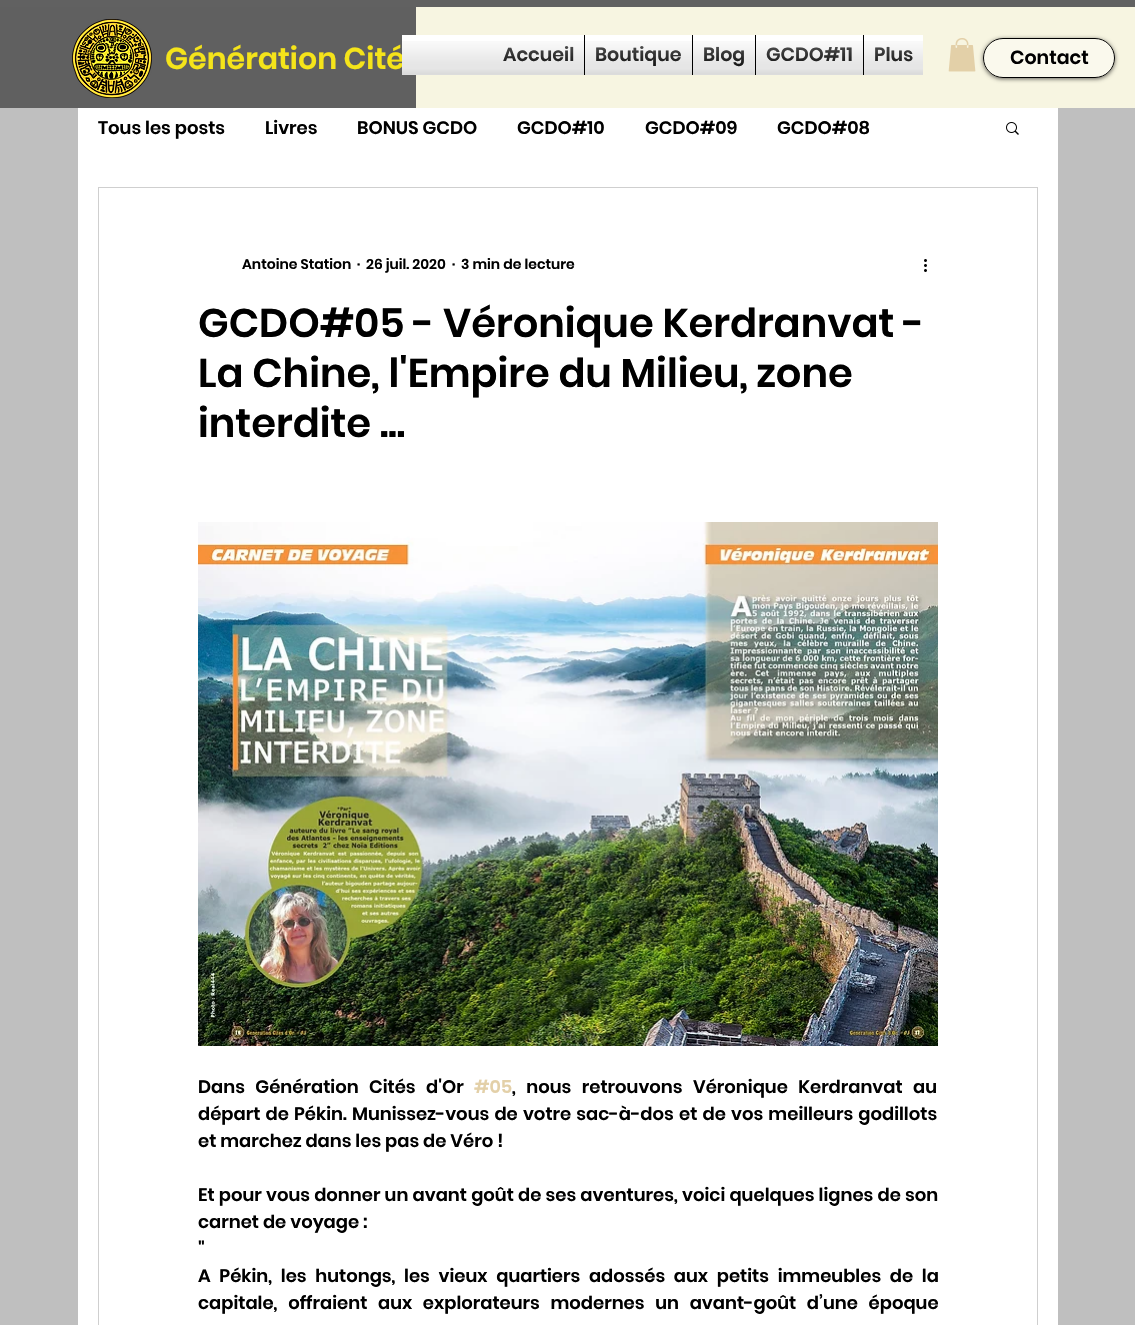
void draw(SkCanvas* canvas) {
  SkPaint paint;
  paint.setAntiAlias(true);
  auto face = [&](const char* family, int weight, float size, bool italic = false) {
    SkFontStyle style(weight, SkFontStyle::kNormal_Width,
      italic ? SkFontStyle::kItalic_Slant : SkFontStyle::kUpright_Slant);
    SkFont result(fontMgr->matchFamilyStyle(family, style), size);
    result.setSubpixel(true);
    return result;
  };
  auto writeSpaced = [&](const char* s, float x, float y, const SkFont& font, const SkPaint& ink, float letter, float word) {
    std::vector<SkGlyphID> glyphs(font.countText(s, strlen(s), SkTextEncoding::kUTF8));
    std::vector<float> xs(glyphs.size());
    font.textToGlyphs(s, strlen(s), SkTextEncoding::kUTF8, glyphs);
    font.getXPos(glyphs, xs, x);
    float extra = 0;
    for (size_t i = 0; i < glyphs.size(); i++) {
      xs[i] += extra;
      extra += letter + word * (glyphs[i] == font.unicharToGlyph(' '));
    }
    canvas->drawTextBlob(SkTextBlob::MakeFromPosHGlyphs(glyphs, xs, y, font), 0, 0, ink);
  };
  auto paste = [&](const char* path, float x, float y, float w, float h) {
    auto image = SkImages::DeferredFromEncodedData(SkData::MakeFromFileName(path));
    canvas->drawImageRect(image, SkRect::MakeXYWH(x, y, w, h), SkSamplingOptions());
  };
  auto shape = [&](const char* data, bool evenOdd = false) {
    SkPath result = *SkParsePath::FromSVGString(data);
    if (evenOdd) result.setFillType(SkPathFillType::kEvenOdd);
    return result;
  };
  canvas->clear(0xffbfbfbf);
  paint.setColor(0xff616161);
  canvas->drawRect(SkRect::MakeXYWH(0, 0, 1135, 7), paint);
  paint.setColor(0xff606060);
  canvas->drawRect(SkRect::MakeXYWH(0, 7, 416, 101), paint);
  paste("img/1.png", 72, 19, 80, 79);
  {
    const struct { float x, y, w, h; SkColor color; } items[] = {
      {416, 7, 719, 101, 0xfff7f5e1},
      {585, 35, 107, 40, 0xffffffff},
      {584, 35, 1, 40, 0xff000000},
      {693, 35, 62, 40, 0xffffffff},
      {692, 35, 1, 40, 0xff000000},
      {756, 35, 107, 40, 0xffffffff},
      {755, 35, 1, 40, 0xff000000},
      {864, 35, 59, 40, 0xffffffff},
      {863, 35, 1, 40, 0xff000000},
    };
    for (auto [x, y, w, h, color] : items) {
      paint.setColor(color);
      canvas->drawRect(SkRect::MakeXYWH(x, y, w, h), paint);
    }
  }
  paste("img/13.png", 948, 38, 28, 34);
  canvas->save();
  canvas->clipPath(shape("M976 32H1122V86H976ZM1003 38H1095C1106 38 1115 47 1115 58C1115 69 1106 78 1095 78H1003C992 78 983 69 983 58C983 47 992 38 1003 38Z", true), true);
  paint.setColor(0x99000000);
  paint.setMaskFilter(SkMaskFilter::MakeBlur(kNormal_SkBlurStyle, 2));
  canvas->drawRoundRect(SkRect::MakeXYWH(983, 39, 132, 40), 20, 20, paint);
  paint.setMaskFilter(nullptr);
  canvas->restore();
  paint.setColor(0x66ffffff);
  canvas->drawRoundRect(SkRect::MakeXYWH(983.5f, 38.5f, 131, 39), 19.5f, 19.5f, paint);
  paint.setStroke(true);
  paint.setStrokeWidth(1);
  paint.setColor(0xff000000);
  canvas->drawRoundRect(SkRect::MakeXYWH(983.5f, 38.5f, 131, 39), 19.5f, 19.5f, paint);
  paint.setStroke(false);
  paint.setColor(0xffffffff);
  canvas->drawRect(SkRect::MakeXYWH(78, 108, 980, 1217), paint);
  paste("img/14.png", 1006, 122, 13, 13);
  paint.setStroke(true);
  paint.setColor(0xffcfcfcf);
  canvas->drawRect(SkRect::MakeXYWH(98.5f, 187.5f, 939, 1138), paint);
  paste("img/15.png", 924, 259, 3, 13);
  paste("img/16.png", 198, 522, 740, 524);
  auto f0 = face("Poppins", 600, 30);
  paint.setStroke(false);
  paint.setColor(0xfff5e41a);
  canvas->drawString("Génération Cité", 165, 69, f0, paint);
  paint.setColor(0xffffffff);
  canvas->drawRect(SkRect::MakeXYWH(402, 35, 182, 40), paint);
  paste("img/2.png", 402, 41, 91, 34);
  auto f1 = face("Poppins", 600, 19);
  paint.setColor(0xff000000);
  canvas->drawString("Accueil", 503, 61, f1, paint);
  paste("img/3.png", 503, 46, 71, 15);
  paste("img/4.png", 493, 41, 91, 34);
  canvas->drawString("Boutique", 595, 61, f1, paint);
  paste("img/5.png", 596, 46, 86, 20);
  paste("img/6.png", 585, 41, 107, 34);
  canvas->drawString("Blog", 703, 61, f1, paint);
  paste("img/7.png", 704, 46, 40, 20);
  paste("img/8.png", 693, 41, 62, 34);
  canvas->drawString("GCDO#11", 766, 61, f1, paint);
  paste("img/9.png", 767, 46, 85, 15);
  paste("img/10.png", 756, 41, 107, 34);
  canvas->drawString("Plus", 874, 61, f1, paint);
  paste("img/11.png", 875, 46, 38, 15);
  paste("img/12.png", 864, 41, 59, 34);
  canvas->drawString("Contact", 1010, 64, f1, paint);
  auto f2 = face("Poppins", 600, 18);
  {
    const struct { const char* s; float x, y; } items[] = {
      {"Tous les posts", 98, 134},
      {"Livres", 265, 134},
      {"BONUS GCDO", 357, 134},
      {"GCDO#10", 517, 134},
      {"GCDO#09", 645, 134},
      {"GCDO#08", 777, 134},
    };
    for (auto [s, x, y] : items) {
      canvas->drawString(s, x, y, f2, paint);
    }
  }
  auto f3 = face("Poppins", 600, 14);
  {
    const struct { const char* s; float x, y; } items[] = {
      {"Antoine Station", 242, 269},
      {"·", 357, 269},
      {"26 juil. 2020", 366, 269},
      {"·", 452, 269},
      {"3 min de lecture", 461, 269},
    };
    for (auto [s, x, y] : items) {
      canvas->drawString(s, x, y, f3, paint);
    }
  }
  auto f4 = face("Poppins", 600, 40);
  {
    const struct { const char* s; float x, y; } items[] = {
      {"GCDO#05 - Véronique Kerdranvat -", 198, 337},
      {"La Chine, l'Empire du Milieu, zone", 198, 387},
      {"interdite ...", 198, 437},
    };
    for (auto [s, x, y] : items) {
      canvas->drawString(s, x, y, f4, paint);
    }
  }
  writeSpaced("Dans Génération Cités d'Or", 198, 1093, f2, paint, 0, 6.5f);
  paint.setColor(0xffe3d0a8);
  canvas->drawString("#05", 474, 1093, f2, paint);
  paint.setColor(0xff000000);
  writeSpaced(", nous retrouvons Véronique Kerdranvat au", 512, 1093, f2, paint, 0, 6.5f);
  writeSpaced("départ de Pékin. Munissez-vous de votre sac-à-dos et de vos meilleurs godillots", 198, 1120, f2, paint, 0, 1.25f);
  canvas->drawString("et marchez dans les pas de Véro !", 198, 1147, f2, paint);
  writeSpaced("Et pour vous donner un avant goût de ses aventures, voici quelques lignes de son", 198, 1201, f2, paint, 0, 0.25f);
  canvas->drawString("carnet de voyage :", 198, 1228, f2, paint);
  canvas->drawString("\"", 198, 1255, f2, paint);
  writeSpaced("A Pékin, les hutongs, les vieux quartiers adossés aux petits immeubles de la", 198, 1282, f2, paint, 0, 4.75f);
  writeSpaced("capitale, offraient aux explorateurs modernes un avant-goût d’une époque", 198, 1309, f2, paint, 0, 6.75f);
}
